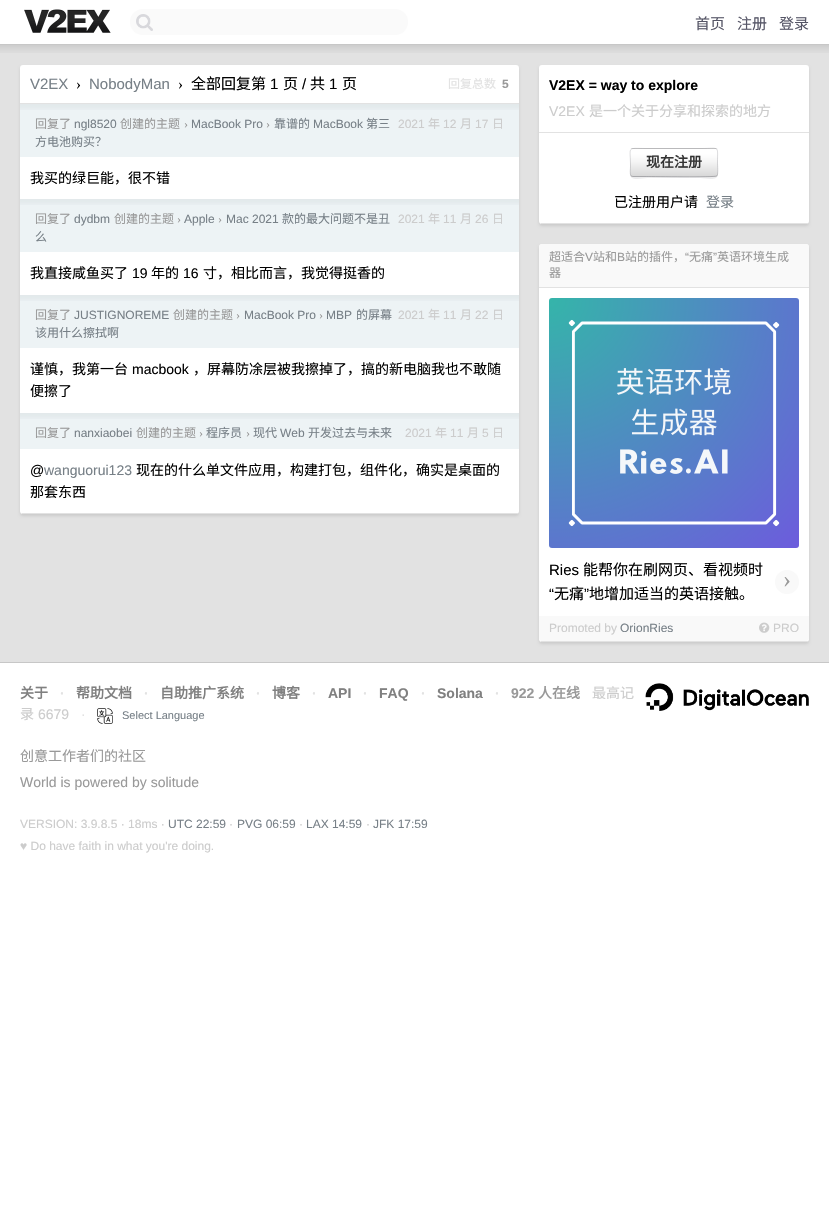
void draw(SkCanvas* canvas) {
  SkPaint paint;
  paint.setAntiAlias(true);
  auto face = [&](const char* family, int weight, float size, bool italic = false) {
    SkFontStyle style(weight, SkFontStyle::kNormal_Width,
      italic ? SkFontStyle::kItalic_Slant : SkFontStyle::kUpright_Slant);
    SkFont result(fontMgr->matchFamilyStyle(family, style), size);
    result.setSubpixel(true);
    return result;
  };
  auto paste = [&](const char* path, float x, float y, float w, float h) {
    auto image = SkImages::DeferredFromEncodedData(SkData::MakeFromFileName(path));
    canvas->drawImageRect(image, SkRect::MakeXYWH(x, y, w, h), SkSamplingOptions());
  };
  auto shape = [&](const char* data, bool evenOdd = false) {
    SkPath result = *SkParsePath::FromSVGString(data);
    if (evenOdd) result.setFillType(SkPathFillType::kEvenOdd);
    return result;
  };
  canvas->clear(0xffffffff);
  paint.setColor(0xffc7c7c7);
  canvas->drawRect(SkRect::MakeXYWH(0, 44, 829, 1), paint);
  paste("img/1.png", 24, 9, 87, 24);
  paint.setColor(0xfffafafa);
  canvas->drawRoundRect(SkRect::MakeXYWH(130, 9, 278, 26), 13, 13, paint);
  paste("img/2.png", 136, 14, 17, 17);
  paint.setColor(0xffe2e2e2);
  canvas->drawRect(SkRect::MakeXYWH(0, 45, 829, 617), paint);
  paste("img/3.png", 0, 45, 829, 8);
  paint.setColor(0x1a000000);
  paint.setMaskFilter(SkMaskFilter::MakeBlur(kNormal_SkBlurStyle, 1.5f));
  canvas->drawRoundRect(SkRect::MakeXYWH(20, 67, 499, 449), 3, 3, paint);
  paint.setMaskFilter(nullptr);
  paint.setColor(0xffffffff);
  canvas->drawRoundRect(SkRect::MakeXYWH(20, 65, 499, 449), 3, 3, paint);
  {
    const struct { float x, y, w, h; SkColor color; } items[] = {
      {22, 513, 496, 1, 0xffe2e2e2},
      {20, 103, 499, 1, 0xffe2e2e2},
      {20, 104, 499, 53, 0xffedf3f5},
    };
    for (auto [x, y, w, h, color] : items) {
      paint.setColor(color);
      canvas->drawRect(SkRect::MakeXYWH(x, y, w, h), paint);
    }
  }
  paste("img/4.png", 20, 104, 499, 6);
  canvas->drawRect(SkRect::MakeXYWH(20, 199, 499, 53), paint);
  paste("img/4.png", 20, 199, 499, 6);
  canvas->drawRect(SkRect::MakeXYWH(20, 295, 499, 53), paint);
  paste("img/4.png", 20, 295, 499, 6);
  canvas->drawRect(SkRect::MakeXYWH(20, 413, 499, 36), paint);
  paste("img/4.png", 20, 413, 499, 6);
  paint.setColor(0x1a000000);
  paint.setMaskFilter(SkMaskFilter::MakeBlur(kNormal_SkBlurStyle, 1.5f));
  canvas->drawRoundRect(SkRect::MakeXYWH(539, 67, 270, 159), 3, 3, paint);
  paint.setMaskFilter(nullptr);
  paint.setColor(0xffffffff);
  canvas->drawRoundRect(SkRect::MakeXYWH(539, 65, 270, 159), 3, 3, paint);
  paint.setColor(0xffe2e2e2);
  canvas->drawRect(SkRect::MakeXYWH(541, 223, 267, 1), paint);
  canvas->drawRect(SkRect::MakeXYWH(539, 132, 270, 1), paint);
  paint.setColor(0xffececed);
  canvas->drawPath(shape("M630 174C630 182 643 178 647 178H701C705 178 718 182 718 174C718 176 717 177 715 177H633C631 177 630 176 630 174Z"), paint);
  paint.setColor(0xffffffff);
  canvas->drawRoundRect(SkRect::MakeXYWH(630, 148, 88, 29), 3, 3, paint);
  paste("img/5.png", 630, 148, 88, 29);
  paint.setStroke(true);
  paint.setStrokeWidth(1);
  paint.setColor(0x5950505a);
  canvas->drawPath(shape("M717 176H716.5C714.5 177.5 654 176.5 646.5 176.5H633L631 176"), paint);
  paint.setColor(0x3350505a);
  canvas->drawPath(shape("M631 176C629.5 174 630.5 168.5 630.5 166.5C630.5 145.5 626 148.5 646.5 148.5H701.5C720 148.5 717.5 145 717.5 162.5C717.5 165 718.5 174 717 176"), paint);
  paint.setStroke(false);
  paint.setColor(0x1a000000);
  paint.setMaskFilter(SkMaskFilter::MakeBlur(kNormal_SkBlurStyle, 1.5f));
  canvas->drawRoundRect(SkRect::MakeXYWH(539, 246, 270, 398), 3, 3, paint);
  paint.setMaskFilter(nullptr);
  paint.setColor(0xffffffff);
  canvas->drawRoundRect(SkRect::MakeXYWH(539, 244, 270, 398), 3, 3, paint);
  paint.setColor(0xffe2e2e2);
  canvas->drawRect(SkRect::MakeXYWH(541, 641, 267, 1), paint);
  paint.setColor(0xfff9f9f9);
  canvas->drawPath(shape("M542 244H806C807.5 244 809 245.5 809 247V288H539V247C539 245.5 540.5 244 542 244Z"), paint);
  paint.setColor(0xffe2e2e2);
  canvas->drawRect(SkRect::MakeXYWH(539, 287, 270, 1), paint);
  paste("img/6.png", 549, 298, 250, 250);
  paint.setColor(0xfff9f9f9);
  canvas->drawCircle(787, 582, 12, paint);
  canvas->drawPath(shape("M539 616H809V638C809 639.5 807.5 641 806 641H542C540.5 641 539 639.5 539 638Z"), paint);
  paste("img/7.png", 759, 622, 11, 11);
  paint.setColor(0xffc7c7c7);
  canvas->drawRect(SkRect::MakeXYWH(0, 662, 829, 1), paint);
  paste("img/8.png", 645, 683, 164, 28);
  paste("img/9.png", 97, 708, 16, 16);
  auto f0 = face("Noto Sans CJK SC", 400, 15);
  paint.setColor(0xff555566);
  {
    const struct { const char* s; float x, y; } items[] = {
      {"首页", 695, 29},
      {"注册", 737, 29},
      {"登录", 779, 29},
    };
    for (auto [s, x, y] : items) {
      canvas->drawString(s, x, y, f0, paint);
    }
  }
  auto f1 = face("Liberation Sans", 400, 15);
  paint.setColor(0xff778087);
  canvas->drawString("V2EX", 30, 89, f1, paint);
  auto f2 = face("Liberation Serif", 400, 15);
  paint.setColor(0xff000000);
  canvas->drawString("›", 76, 89, f2, paint);
  paint.setColor(0xff778087);
  canvas->drawString("NobodyMan", 89, 89, f1, paint);
  paint.setColor(0xff000000);
  canvas->drawString("›", 178, 89, f2, paint);
  canvas->drawString("全部回复第", 191, 89, f0, paint);
  canvas->drawString("1", 270, 89, f1, paint);
  canvas->drawString("页", 283, 89, f0, paint);
  canvas->drawString("/", 302, 89, f1, paint);
  canvas->drawString("共", 310, 89, f0, paint);
  canvas->drawString("1", 329, 89, f1, paint);
  canvas->drawString("页", 342, 89, f0, paint);
  auto f3 = face("Noto Sans CJK SC", 400, 12);
  paint.setColor(0xffe2e2e2);
  canvas->drawString("回复总数", 448, 88, f3, paint);
  auto f4 = face("Liberation Sans", 700, 12);
  paint.setColor(0xff999999);
  canvas->drawString("5", 502, 88, f4, paint);
  canvas->drawString("回复了", 35, 128, f3, paint);
  auto f5 = face("Liberation Sans", 400, 12);
  paint.setColor(0xff778087);
  canvas->drawString("ngl8520", 74, 128, f5, paint);
  paint.setColor(0xff999999);
  canvas->drawString("创建的主题", 120, 128, f3, paint);
  auto f6 = face("Liberation Serif", 400, 12);
  canvas->drawString("›", 184, 128, f6, paint);
  paint.setColor(0xff778087);
  canvas->drawString("MacBook Pro", 191, 128, f5, paint);
  paint.setColor(0xff999999);
  canvas->drawString("›", 266, 128, f6, paint);
  paint.setColor(0xff778087);
  canvas->drawString("靠谱的", 274, 128, f3, paint);
  canvas->drawString("MacBook", 313, 128, f5, paint);
  canvas->drawString("第三", 366, 128, f3, paint);
  paint.setColor(0xffcccccc);
  canvas->drawString("2021", 398, 128, f5, paint);
  canvas->drawString("年", 428, 128, f3, paint);
  canvas->drawString("12", 443, 128, f5, paint);
  canvas->drawString("月", 460, 128, f3, paint);
  canvas->drawString("17", 475, 128, f5, paint);
  canvas->drawString("日", 492, 128, f3, paint);
  paint.setColor(0xff778087);
  canvas->drawString("方电池购买？", 35, 146, f3, paint);
  auto f7 = face("Noto Sans CJK SC", 400, 14);
  paint.setColor(0xff000000);
  canvas->drawString("我买的绿巨能，很不错", 30, 183, f7, paint);
  paint.setColor(0xff999999);
  canvas->drawString("回复了", 35, 223, f3, paint);
  paint.setColor(0xff778087);
  canvas->drawString("dydbm", 74, 223, f5, paint);
  paint.setColor(0xff999999);
  canvas->drawString("创建的主题", 114, 223, f3, paint);
  canvas->drawString("›", 177, 223, f6, paint);
  paint.setColor(0xff778087);
  canvas->drawString("Apple", 184, 223, f5, paint);
  paint.setColor(0xff999999);
  canvas->drawString("›", 218, 223, f6, paint);
  paint.setColor(0xff778087);
  canvas->drawString("Mac 2021", 226, 223, f5, paint);
  canvas->drawString("款的最大问题不是丑", 282, 223, f3, paint);
  paint.setColor(0xffcccccc);
  canvas->drawString("2021", 398, 223, f5, paint);
  canvas->drawString("年", 428, 223, f3, paint);
  canvas->drawString("11", 443, 223, f5, paint);
  canvas->drawString("月", 460, 223, f3, paint);
  canvas->drawString("26", 475, 223, f5, paint);
  canvas->drawString("日", 492, 223, f3, paint);
  paint.setColor(0xff778087);
  canvas->drawString("么", 35, 241, f3, paint);
  paint.setColor(0xff000000);
  canvas->drawString("我直接咸鱼买了", 30, 278, f7, paint);
  auto f8 = face("Liberation Sans", 400, 14);
  canvas->drawString("19", 132, 278, f8, paint);
  canvas->drawString("年的", 151, 278, f7, paint);
  canvas->drawString("16", 183, 278, f8, paint);
  canvas->drawString("寸，相比而言，我觉得挺香的", 203, 278, f7, paint);
  paint.setColor(0xff999999);
  canvas->drawString("回复了", 35, 319, f3, paint);
  paint.setColor(0xff778087);
  canvas->drawString("JUSTIGNOREME", 74, 319, f5, paint);
  paint.setColor(0xff999999);
  canvas->drawString("创建的主题", 173, 319, f3, paint);
  canvas->drawString("›", 236, 319, f6, paint);
  paint.setColor(0xff778087);
  canvas->drawString("MacBook Pro", 244, 319, f5, paint);
  paint.setColor(0xff999999);
  canvas->drawString("›", 319, 319, f6, paint);
  paint.setColor(0xff778087);
  canvas->drawString("MBP", 326, 319, f5, paint);
  canvas->drawString("的屏幕", 356, 319, f3, paint);
  paint.setColor(0xffcccccc);
  canvas->drawString("2021", 398, 319, f5, paint);
  canvas->drawString("年", 428, 319, f3, paint);
  canvas->drawString("11", 443, 319, f5, paint);
  canvas->drawString("月", 460, 319, f3, paint);
  canvas->drawString("22", 475, 319, f5, paint);
  canvas->drawString("日", 492, 319, f3, paint);
  paint.setColor(0xff778087);
  canvas->drawString("该用什么擦拭啊", 35, 337, f3, paint);
  paint.setColor(0xff000000);
  canvas->drawString("谨慎，我第一台", 30, 374, f7, paint);
  canvas->drawString("macbook", 132, 374, f8, paint);
  canvas->drawString("，屏幕防凃层被我擦掉了，搞的新电脑我也不敢随", 193, 374, f7, paint);
  canvas->drawString("便擦了", 30, 396, f7, paint);
  paint.setColor(0xff999999);
  canvas->drawString("回复了", 35, 437, f3, paint);
  paint.setColor(0xff778087);
  canvas->drawString("nanxiaobei", 74, 437, f5, paint);
  paint.setColor(0xff999999);
  canvas->drawString("创建的主题", 136, 437, f3, paint);
  canvas->drawString("›", 199, 437, f6, paint);
  paint.setColor(0xff778087);
  canvas->drawString("程序员", 206, 437, f3, paint);
  paint.setColor(0xff999999);
  canvas->drawString("›", 246, 437, f6, paint);
  paint.setColor(0xff778087);
  canvas->drawString("现代", 253, 437, f3, paint);
  canvas->drawString("Web", 280, 437, f5, paint);
  canvas->drawString("开发过去与未来", 308, 437, f3, paint);
  paint.setColor(0xffcccccc);
  canvas->drawString("2021", 405, 437, f5, paint);
  canvas->drawString("年", 435, 437, f3, paint);
  canvas->drawString("11", 450, 437, f5, paint);
  canvas->drawString("月", 467, 437, f3, paint);
  canvas->drawString("5", 482, 437, f5, paint);
  canvas->drawString("日", 492, 437, f3, paint);
  paint.setColor(0xff000000);
  canvas->drawString("@", 30, 475, f8, paint);
  paint.setColor(0xff778087);
  canvas->drawString("wanguorui123", 44, 475, f8, paint);
  paint.setColor(0xff000000);
  canvas->drawString("现在的什么单文件应用，构建打包，组件化，确实是桌面的", 136, 475, f7, paint);
  canvas->drawString("那套东西", 30, 497, f7, paint);
  auto f9 = face("Liberation Sans", 700, 14);
  canvas->drawString("V2EX = way to explore", 549, 90, f9, paint);
  paint.setColor(0xffcccccc);
  canvas->drawString("V2EX", 549, 116, f8, paint);
  canvas->drawString("是一个关于分享和探索的地方", 589, 116, f7, paint);
  auto f10 = face("Noto Sans CJK SC", 700, 14);
  paint.setColor(0xff333333);
  canvas->drawString("现在注册", 646, 167, f10, paint);
  paint.setColor(0xff000000);
  canvas->drawString("已注册用户请", 614, 207, f7, paint);
  paint.setColor(0xff778087);
  canvas->drawString("登录", 706, 207, f7, paint);
  paint.setColor(0xff999999);
  canvas->drawString("超适合", 549, 261, f3, paint);
  canvas->drawString("V", 585, 261, f5, paint);
  canvas->drawString("站和", 593, 261, f3, paint);
  canvas->drawString("B", 617, 261, f5, paint);
  canvas->drawString("站的插件，", 625, 261, f3, paint);
  canvas->drawString("“", 685, 261, f5, paint);
  canvas->drawString("无痛", 689, 261, f3, paint);
  canvas->drawString("”", 713, 261, f5, paint);
  canvas->drawString("英语环境生成", 717, 261, f3, paint);
  canvas->drawString("器", 549, 277, f3, paint);
  paint.setColor(0xff000000);
  canvas->drawString("Ries", 549, 575, f1, paint);
  canvas->drawString("能帮你在刷网页、看视频时", 583, 575, f0, paint);
  canvas->drawString("“", 549, 599, f1, paint);
  canvas->drawString("无痛", 554, 599, f0, paint);
  canvas->drawString("”", 584, 599, f1, paint);
  canvas->drawString("地增加适当的英语接触。", 589, 599, f0, paint);
  auto f11 = face("Liberation Serif", 400, 24);
  paint.setColor(0xff999999);
  canvas->drawString("›", 783, 587, f11, paint);
  paint.setColor(0xffcccccc);
  canvas->drawString("Promoted by", 549, 632, f5, paint);
  paint.setColor(0xff778087);
  canvas->drawString("OrionRies", 620, 632, f5, paint);
  paint.setColor(0xffcccccc);
  canvas->drawString("PRO", 773, 632, f5, paint);
  paint.setColor(0xff808080);
  canvas->drawString("关于", 20, 698, f10, paint);
  paint.setColor(0xffe2e2e2);
  canvas->drawString("·", 60, 698, f9, paint);
  paint.setColor(0xff808080);
  canvas->drawString("帮助文档", 76, 698, f10, paint);
  paint.setColor(0xffe2e2e2);
  canvas->drawString("·", 144, 698, f9, paint);
  paint.setColor(0xff808080);
  canvas->drawString("自助推广系统", 160, 698, f10, paint);
  paint.setColor(0xffe2e2e2);
  canvas->drawString("·", 256, 698, f9, paint);
  paint.setColor(0xff808080);
  canvas->drawString("博客", 272, 698, f10, paint);
  paint.setColor(0xffe2e2e2);
  canvas->drawString("·", 312, 698, f9, paint);
  paint.setColor(0xff808080);
  canvas->drawString("API", 328, 698, f9, paint);
  paint.setColor(0xffe2e2e2);
  canvas->drawString("·", 363, 698, f9, paint);
  paint.setColor(0xff808080);
  canvas->drawString("FAQ", 379, 698, f9, paint);
  paint.setColor(0xffe2e2e2);
  canvas->drawString("·", 421, 698, f9, paint);
  paint.setColor(0xff808080);
  canvas->drawString("Solana", 437, 698, f9, paint);
  paint.setColor(0xffe2e2e2);
  canvas->drawString("·", 495, 698, f9, paint);
  paint.setColor(0xff999999);
  canvas->drawString("922", 511, 698, f9, paint);
  canvas->drawString("人在线", 538, 698, f10, paint);
  paint.setColor(0xffcccccc);
  canvas->drawString("最高记", 592, 698, f7, paint);
  canvas->drawString("录", 20, 719, f7, paint);
  canvas->drawString("6679", 38, 719, f8, paint);
  paint.setColor(0xffe2e2e2);
  canvas->drawString("·", 81, 719, f8, paint);
  auto f12 = face("Liberation Sans", 400, 11);
  paint.setColor(0xff778087);
  canvas->drawString("Select Language", 122, 719, f12, paint);
  paint.setColor(0xff999999);
  canvas->drawString("创意工作者们的社区", 20, 761, f7, paint);
  canvas->drawString("World is powered by solitude", 20, 787, f8, paint);
  paint.setColor(0xffcccccc);
  canvas->drawString("VERSION: 3.9.8.5 · 18ms ·", 20, 828, f5, paint);
  paint.setColor(0xff778087);
  canvas->drawString("UTC 22:59", 168, 828, f5, paint);
  paint.setColor(0xffcccccc);
  canvas->drawString("·", 229, 828, f5, paint);
  paint.setColor(0xff778087);
  canvas->drawString("PVG 06:59", 237, 828, f5, paint);
  paint.setColor(0xffcccccc);
  canvas->drawString("·", 299, 828, f5, paint);
  paint.setColor(0xff778087);
  canvas->drawString("LAX 14:59", 306, 828, f5, paint);
  paint.setColor(0xffcccccc);
  canvas->drawString("·", 366, 828, f5, paint);
  paint.setColor(0xff778087);
  canvas->drawString("JFK 17:59", 373, 828, f5, paint);
  paint.setColor(0xffcccccc);
  canvas->drawString("♥ Do have faith in what you're doing.", 20, 850, f5, paint);
}
